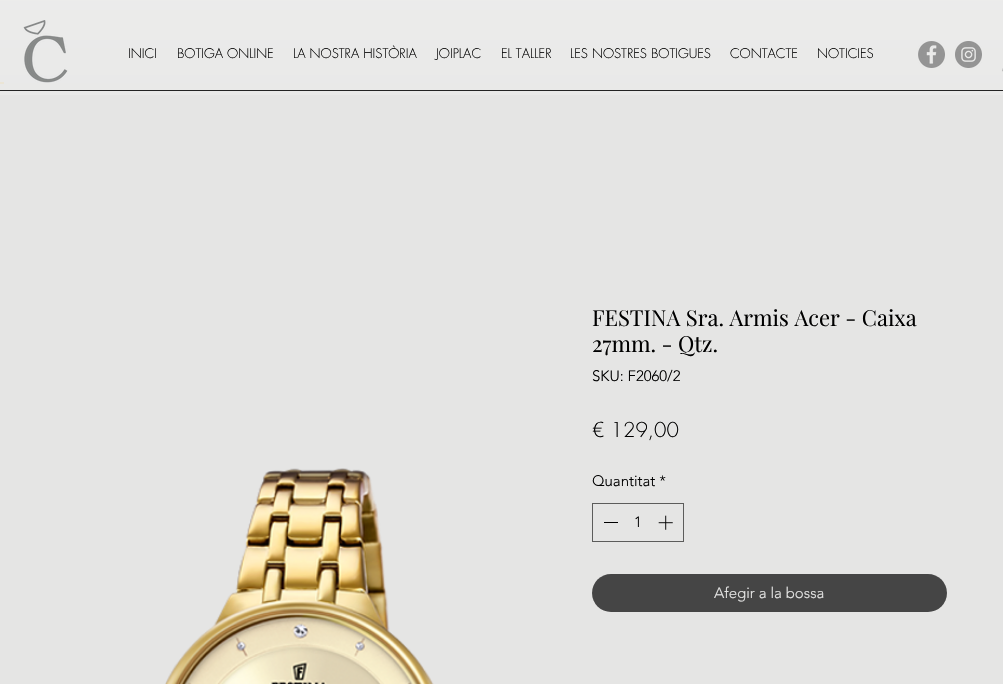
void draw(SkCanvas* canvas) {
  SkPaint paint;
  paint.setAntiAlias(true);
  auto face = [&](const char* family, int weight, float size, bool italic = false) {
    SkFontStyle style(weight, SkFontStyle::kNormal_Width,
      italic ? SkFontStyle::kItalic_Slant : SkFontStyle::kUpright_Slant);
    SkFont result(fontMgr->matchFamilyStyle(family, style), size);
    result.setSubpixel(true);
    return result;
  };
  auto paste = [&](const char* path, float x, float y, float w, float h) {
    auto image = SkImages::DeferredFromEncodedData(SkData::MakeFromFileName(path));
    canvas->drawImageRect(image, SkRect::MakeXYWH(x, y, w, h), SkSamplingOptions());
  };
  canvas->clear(0xffe5e5e4);
  paste("img/1.png", 0, 0, 1003, 95);
  paste("img/2.png", 23, 20, 45, 63);
  paste("img/3.png", 918, 41, 27, 27);
  paste("img/4.png", 955, 41, 27, 27);
  paste("img/5.png", 1002, 68, 1, 4);
  paint.setColor(0xffebe5d6);
  canvas->drawRect(SkRect::MakeXYWH(0, 82, 4, 2), paint);
  paint.setColor(0xff232323);
  canvas->drawRect(SkRect::MakeXYWH(0, 90, 1003, 1), paint);
  paste("img/6.png", 165, 468, 269, 216);
  paint.setStroke(true);
  paint.setStrokeWidth(1);
  paint.setColor(0xff5c5c5b);
  canvas->drawRect(SkRect::MakeXYWH(592.5f, 503.5f, 91, 38), paint);
  paint.setStroke(false);
  paint.setColor(0xff000000);
  canvas->drawRect(SkRect::MakeXYWH(604, 522, 14, 1), paint);
  paste("img/7.png", 658, 515, 15, 15);
  paint.setColor(0xff454545);
  canvas->drawRoundRect(SkRect::MakeXYWH(592, 574, 355, 38), 19, 19, paint);
  auto f0 = face("futura", 300, 13);
  paint.setColor(0xff000000);
  {
    const struct { const char* s; float x, y; } items[] = {
      {"INICI", 128, 58},
      {"BOTIGA ONLINE", 177, 58},
      {"LA NOSTRA HISTÒRIA", 293, 58},
      {"JOIPLAC", 436, 58},
      {"EL TALLER", 501, 58},
      {"LES NOSTRES BOTIGUES", 570, 58},
      {"CONTACTE", 730, 58},
      {"NOTICIES", 817, 58},
    };
    for (auto [s, x, y] : items) {
      canvas->drawString(s, x, y, f0, paint);
    }
  }
  auto f1 = face("Playfair Display", 400, 22);
  canvas->drawString("FESTINA Sra. Armis Acer - Caixa", 592, 326, f1, paint);
  canvas->drawString("27mm. - Qtz.", 592, 352, f1, paint);
  auto f2 = face("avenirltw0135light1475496", 300, 15);
  canvas->drawString("SKU: F2060/2", 592, 381, f2, paint);
  auto f3 = face("futura", 300, 20);
  canvas->drawString("€ 129,00", 592, 437, f3, paint);
  canvas->drawString("Quantitat *", 592, 486, f2, paint);
  canvas->drawString("1", 634, 527, f2, paint);
  paint.setColor(0xffe5e5e4);
  canvas->drawString("Afegir a la bossa", 714, 598, f2, paint);
}
